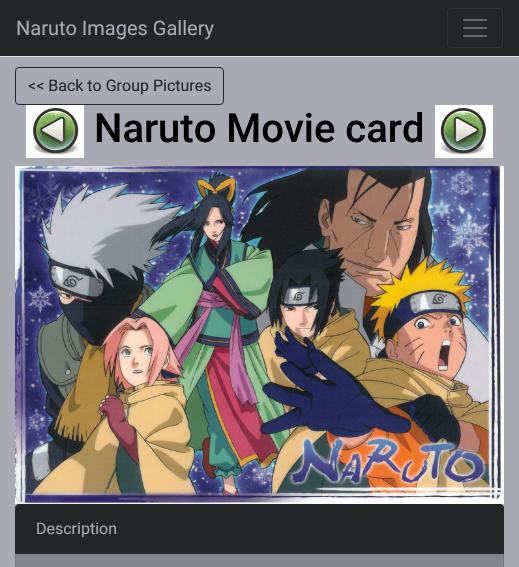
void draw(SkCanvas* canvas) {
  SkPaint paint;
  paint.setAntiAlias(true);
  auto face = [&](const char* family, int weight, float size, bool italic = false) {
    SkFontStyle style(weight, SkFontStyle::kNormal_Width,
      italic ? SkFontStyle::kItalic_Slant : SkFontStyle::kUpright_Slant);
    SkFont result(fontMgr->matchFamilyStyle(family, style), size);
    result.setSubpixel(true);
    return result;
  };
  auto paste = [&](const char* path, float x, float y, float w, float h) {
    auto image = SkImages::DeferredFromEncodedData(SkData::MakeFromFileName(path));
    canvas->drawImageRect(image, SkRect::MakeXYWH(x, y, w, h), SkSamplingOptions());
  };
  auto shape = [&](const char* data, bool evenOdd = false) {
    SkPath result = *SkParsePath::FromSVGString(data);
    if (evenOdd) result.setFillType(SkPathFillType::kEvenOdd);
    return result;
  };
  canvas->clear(0xffa9a9b3);
  paint.setColor(0xff252627);
  canvas->drawRect(SkRect::MakeXYWH(0, 0, 519, 56), paint);
  paint.setColor(0xffdee2e6);
  canvas->drawRect(SkRect::MakeXYWH(0, 56, 519, 1), paint);
  paint.setStroke(true);
  paint.setStrokeWidth(1);
  paint.setColor(0xff323335);
  canvas->drawRoundRect(SkRect::MakeXYWH(447.5f, 8.5f, 55, 39), 3.5f, 3.5f, paint);
  paste("img/1.png", 463, 19, 24, 18);
  paint.setColor(0xff252627);
  canvas->drawRoundRect(SkRect::MakeXYWH(15.5f, 67.5f, 208, 37), 3.5f, 3.5f, paint);
  paste("img/2.png", 26, 105, 58, 53);
  paste("img/3.png", 435, 105, 58, 53);
  paste("img/4.png", 15, 166, 489, 338);
  paint.setStroke(false);
  paint.setColor(0xff84848c);
  canvas->drawRect(SkRect::MakeXYWH(15.5f, 553.5f, 488, 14), paint);
  paint.setStroke(true);
  paint.setColor(0xff78787f);
  canvas->drawRect(SkRect::MakeXYWH(15.5f, 553.5f, 488, 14), paint);
  paint.setStroke(false);
  paint.setColor(0xff252627);
  canvas->drawPath(shape("M19 504.5H500C502 504.5 503.5 506 503.5 508V553.5H15.5V508C15.5 506 17 504.5 19 504.5Z"), paint);
  paint.setStroke(true);
  canvas->drawPath(shape("M19 504.5H500C502 504.5 503.5 506 503.5 508V553.5H15.5V508C15.5 506 17 504.5 19 504.5Z"), paint);
  auto f0 = face("Roboto", 400, 20);
  paint.setStroke(false);
  paint.setColor(0xffa9a9b3);
  canvas->drawString("Naruto Images Gallery", 16, 35, f0, paint);
  auto f1 = face("Roboto", 400, 16);
  paint.setColor(0xff252627);
  canvas->drawString("<< Back to Group Pictures", 28, 91, f1, paint);
  auto f2 = face("Roboto", 500, 40);
  paint.setColor(0xff000000);
  canvas->drawString("Naruto Movie card", 94, 142, f2, paint);
  paint.setColor(0xffa9a9b3);
  canvas->drawString("Description", 36, 534, f1, paint);
}
